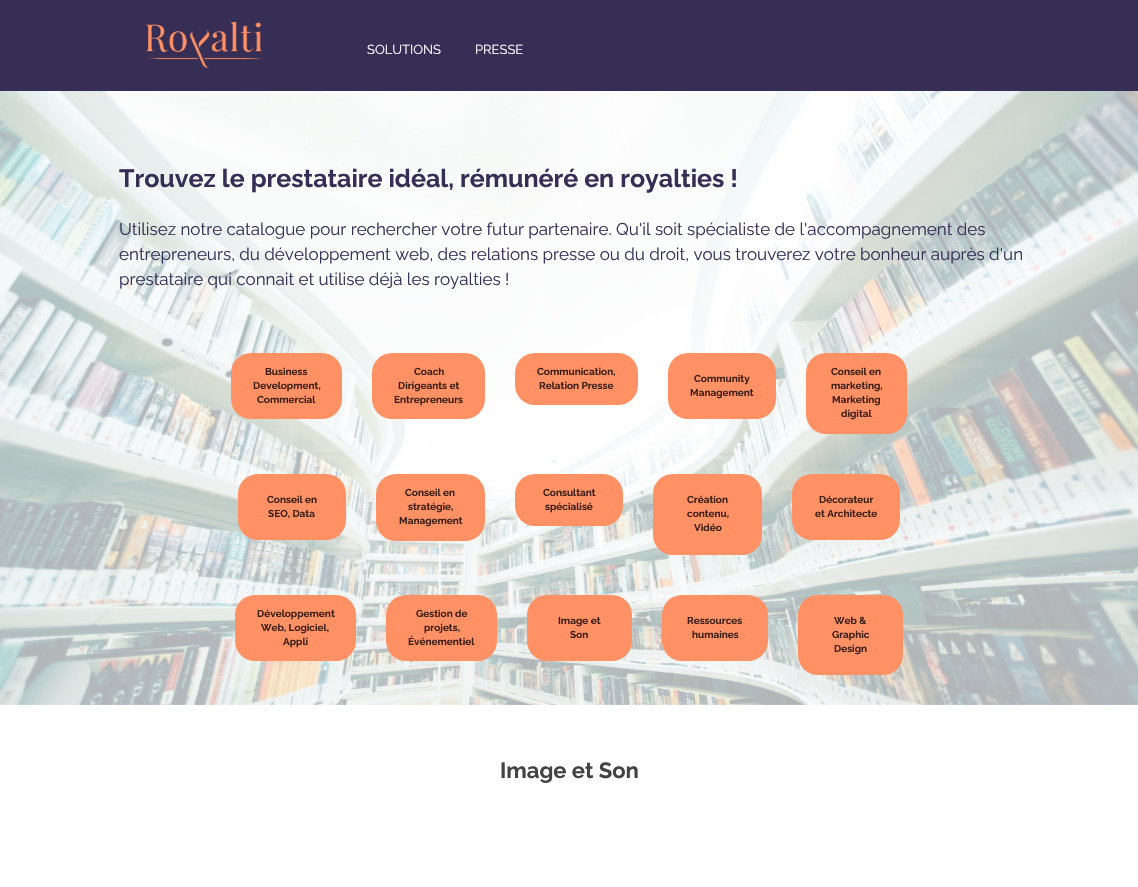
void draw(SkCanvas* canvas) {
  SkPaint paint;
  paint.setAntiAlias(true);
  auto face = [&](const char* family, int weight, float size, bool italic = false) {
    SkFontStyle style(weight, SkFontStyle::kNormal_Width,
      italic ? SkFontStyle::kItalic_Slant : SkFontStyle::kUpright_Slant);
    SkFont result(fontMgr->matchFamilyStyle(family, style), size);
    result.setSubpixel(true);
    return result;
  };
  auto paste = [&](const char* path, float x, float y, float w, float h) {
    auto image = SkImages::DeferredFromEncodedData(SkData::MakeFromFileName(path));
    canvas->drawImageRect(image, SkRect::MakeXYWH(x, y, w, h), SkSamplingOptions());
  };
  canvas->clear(0xffffffff);
  paint.setColor(0xff372e56);
  canvas->drawRect(SkRect::MakeXYWH(0, 0, 1138, 91), paint);
  paste("img/1.png", 145, 21, 118, 48);
  paste("img/2.png", 0, 91, 1138, 614);
  paint.setColor(0xffff9164);
  canvas->drawRoundRect(SkRect::MakeXYWH(231, 353, 111, 66), 20, 20, paint);
  canvas->drawRoundRect(SkRect::MakeXYWH(372, 353, 113, 66), 20, 20, paint);
  canvas->drawRoundRect(SkRect::MakeXYWH(515, 353, 123, 52), 20, 20, paint);
  canvas->drawRoundRect(SkRect::MakeXYWH(668, 353, 108, 66), 20, 20, paint);
  canvas->drawRoundRect(SkRect::MakeXYWH(806, 353, 101, 81), 20, 20, paint);
  canvas->drawRoundRect(SkRect::MakeXYWH(238, 474, 108, 66), 20, 20, paint);
  canvas->drawRoundRect(SkRect::MakeXYWH(376, 474, 109, 67), 20, 20, paint);
  canvas->drawRoundRect(SkRect::MakeXYWH(515, 474, 108, 52), 20, 20, paint);
  canvas->drawRoundRect(SkRect::MakeXYWH(653, 474, 109, 81), 20, 20, paint);
  canvas->drawRoundRect(SkRect::MakeXYWH(792, 474, 108, 66), 20, 20, paint);
  canvas->drawRoundRect(SkRect::MakeXYWH(235, 595, 121, 66), 20, 20, paint);
  canvas->drawRoundRect(SkRect::MakeXYWH(386, 595, 111, 66), 20, 20, paint);
  canvas->drawRoundRect(SkRect::MakeXYWH(527, 595, 105, 66), 20, 20, paint);
  canvas->drawRoundRect(SkRect::MakeXYWH(662, 595, 106, 66), 20, 20, paint);
  canvas->drawRoundRect(SkRect::MakeXYWH(798, 595, 105, 80), 20, 20, paint);
  auto f0 = face("Raleway", 400, 13);
  paint.setColor(0xffffffff);
  canvas->drawString("SOLUTIONS", 367, 54, f0, paint);
  canvas->drawString("PRESSE", 475, 54, f0, paint);
  auto f1 = face("Raleway", 700, 25);
  paint.setColor(0xff372e56);
  canvas->drawString("Trouvez le prestataire idéal, rémunéré en royalties !", 119, 187, f1, paint);
  auto f2 = face("Raleway", 400, 17);
  {
    const struct { const char* s; float x, y; } items[] = {
      {"Utilisez notre catalogue pour rechercher votre futur partenaire. Qu'il soit spécialiste de l'accompagnement des", 119, 235},
      {"entrepreneurs, du développement web, des relations presse ou du droit, vous trouverez votre bonheur auprès d'un", 119, 260},
      {"prestataire qui connait et utilise déjà les royalties !", 119, 285},
    };
    for (auto [s, x, y] : items) {
      canvas->drawString(s, x, y, f2, paint);
    }
  }
  auto f3 = face("Raleway", 700, 10);
  paint.setColor(0xff3d2019);
  {
    const struct { const char* s; float x, y; } items[] = {
      {"Business", 265, 375},
      {"Development,", 253, 389},
      {"Commercial", 257, 403},
      {"Coach", 414, 375},
      {"Dirigeants et", 398, 389},
      {"Entrepreneurs", 394, 403},
      {"Communication,", 537, 375},
      {"Relation Presse", 539, 389},
      {"Community", 694, 382},
      {"Management", 690, 396},
      {"Conseil en", 831, 375},
      {"marketing,", 831, 389},
      {"Marketing", 832, 403},
      {"digital", 841, 417},
      {"Conseil en", 267, 503},
      {"SEO, Data", 268, 517},
      {"Conseil en", 405, 496},
      {"stratégie,", 408, 510},
      {"Management", 399, 524},
      {"Consultant", 543, 496},
      {"spécialisé", 545, 510},
      {"Création", 687, 503},
      {"contenu,", 687, 517},
      {"Vidéo", 694, 531},
      {"Décorateur", 819, 503},
      {"et Architecte", 815, 517},
      {"Développement", 257, 617},
      {"Web, Logiciel,", 261, 631},
      {"Appli", 283, 645},
      {"Gestion de", 416, 617},
      {"projets,", 424, 631},
      {"Événementiel", 408, 645},
      {"Image et", 558, 624},
      {"Son", 570, 638},
      {"Ressources", 687, 624},
      {"humaines", 692, 638},
      {"Web &", 834, 624},
      {"Graphic", 832, 638},
      {"Design", 834, 652},
    };
    for (auto [s, x, y] : items) {
      canvas->drawString(s, x, y, f3, paint);
    }
  }
  auto f4 = face("Raleway", 700, 22);
  paint.setColor(0xff424242);
  canvas->drawString("Image et Son", 500, 778, f4, paint);
}
